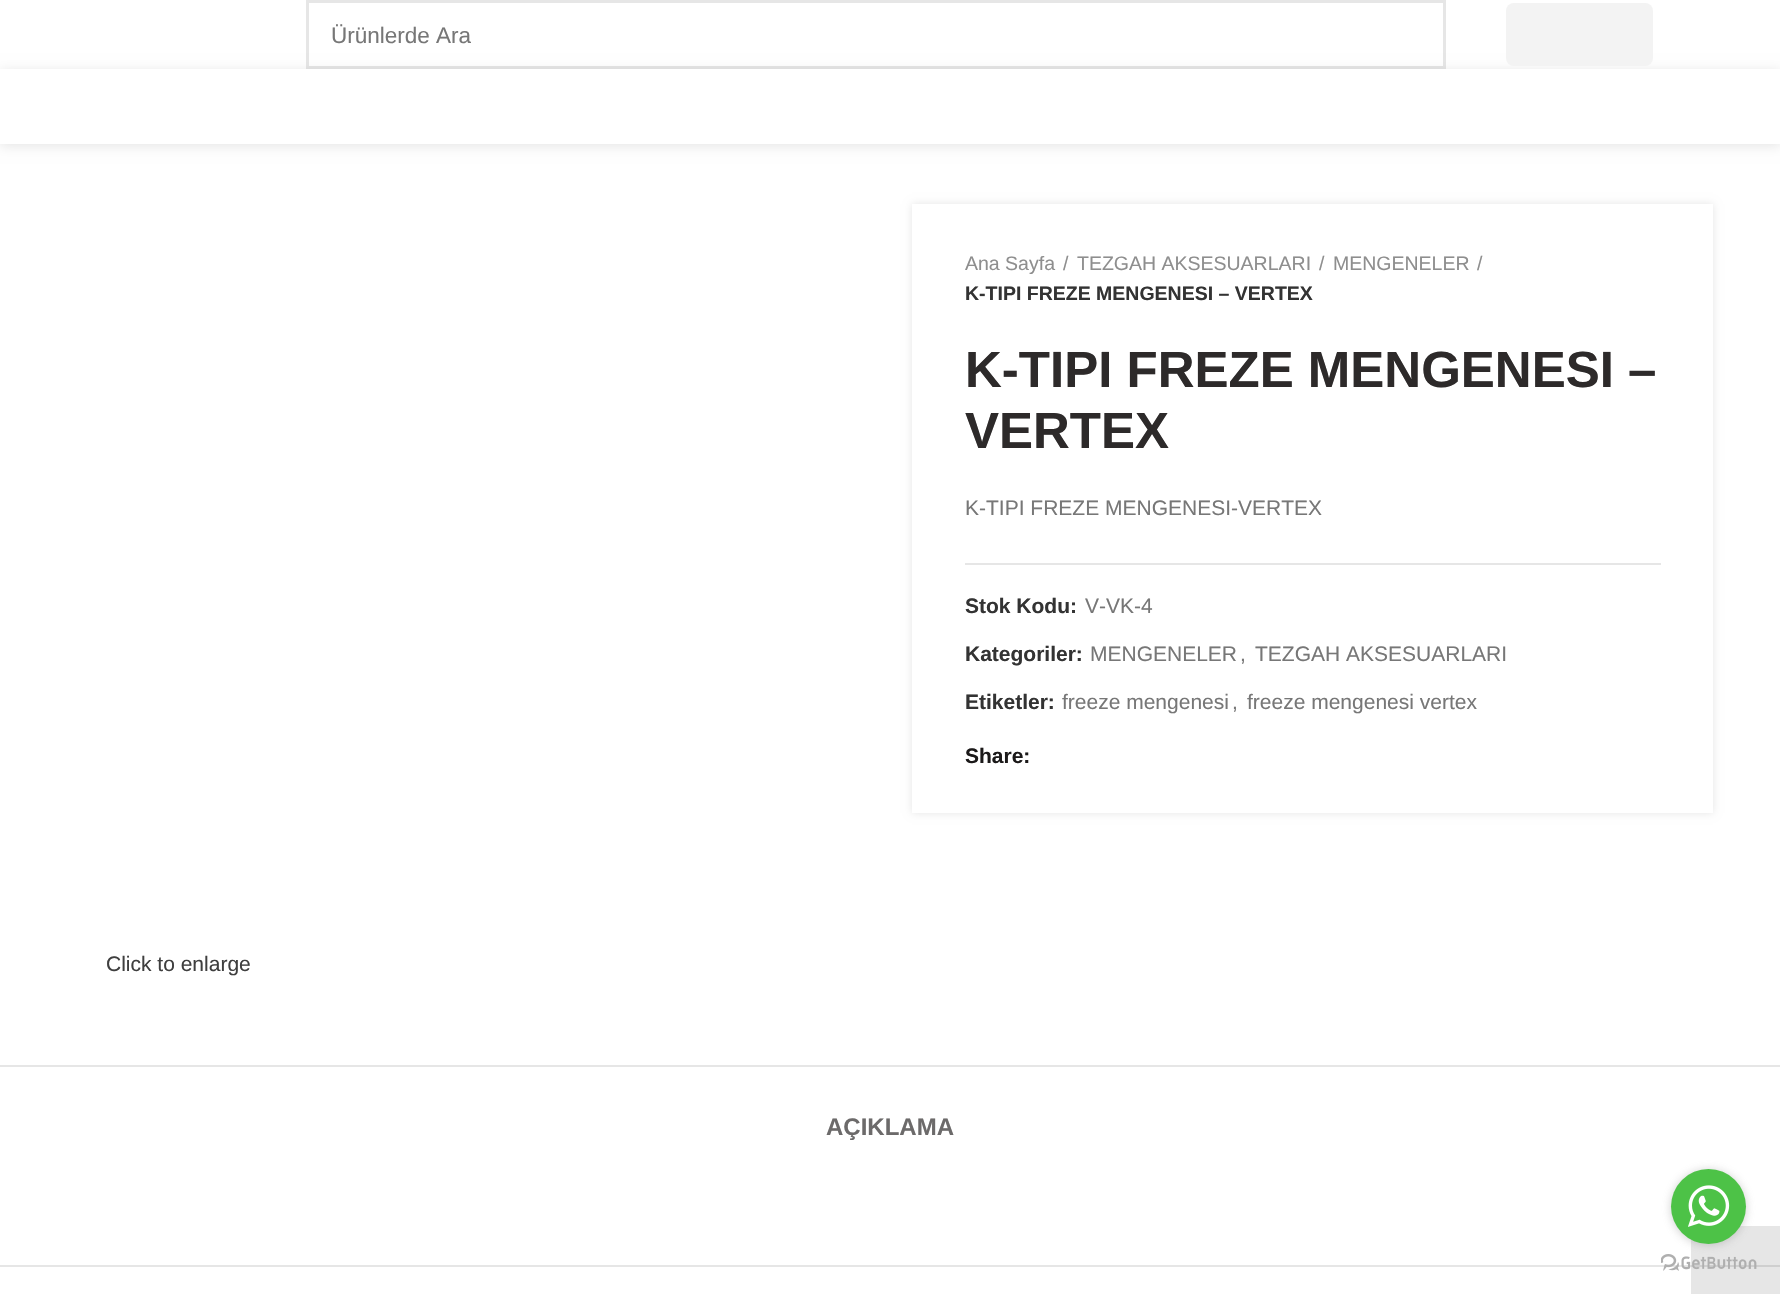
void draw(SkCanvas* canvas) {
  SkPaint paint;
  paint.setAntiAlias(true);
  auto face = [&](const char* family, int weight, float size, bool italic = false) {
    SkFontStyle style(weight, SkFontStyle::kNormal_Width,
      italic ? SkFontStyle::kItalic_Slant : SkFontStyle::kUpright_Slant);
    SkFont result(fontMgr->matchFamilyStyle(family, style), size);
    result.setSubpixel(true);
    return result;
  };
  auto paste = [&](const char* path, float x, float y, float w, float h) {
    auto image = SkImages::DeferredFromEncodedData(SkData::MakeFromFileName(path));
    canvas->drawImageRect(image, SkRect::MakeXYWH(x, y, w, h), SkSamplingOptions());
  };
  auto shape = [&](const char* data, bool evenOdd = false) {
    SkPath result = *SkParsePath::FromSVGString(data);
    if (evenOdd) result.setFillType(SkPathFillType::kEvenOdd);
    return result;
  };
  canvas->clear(0xffffffff);
  paint.setColor(0xffe6e6e6);
  canvas->drawRect(SkRect::MakeXYWH(1691, 1226, 89, 68), paint);
  canvas->save();
  canvas->clipPath(shape("M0 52H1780V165H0ZM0 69H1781V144H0Z", true), true);
  paint.setColor(0x1a000000);
  paint.setMaskFilter(SkMaskFilter::MakeBlur(kNormal_SkBlurStyle, 6));
  canvas->drawRect(SkRect::MakeXYWH(0, 71, 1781, 75), paint);
  paint.setMaskFilter(nullptr);
  canvas->restore();
  paint.setStroke(true);
  paint.setStrokeWidth(3);
  paint.setColor(0x33818181);
  canvas->drawRect(SkRect::MakeXYWH(307.5f, 1.5f, 1137, 66), paint);
  paint.setStroke(false);
  paint.setColor(0xfff3f3f3);
  canvas->drawRoundRect(SkRect::MakeXYWH(1506, 3, 147, 63), 8, 8, paint);
  canvas->save();
  canvas->clipPath(shape("M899 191H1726V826H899ZM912 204H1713V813H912Z", true), true);
  paint.setColor(0x1a000000);
  paint.setMaskFilter(SkMaskFilter::MakeBlur(kNormal_SkBlurStyle, 4));
  canvas->drawRect(SkRect::MakeXYWH(912, 204, 801, 609), paint);
  paint.setMaskFilter(nullptr);
  canvas->restore();
  {
    const struct { float x, y, w, h; SkColor color; } items[] = {
      {965, 563, 696, 2, 0xffe6e6e6},
      {0, 1065, 1780, 2, 0xffe6e6e6},
      {0, 1265, 1691, 2, 0xffe6e6e6},
      {1691, 1265, 89, 2, 0xffcfcfcf},
    };
    for (auto [x, y, w, h, color] : items) {
      paint.setColor(color);
      canvas->drawRect(SkRect::MakeXYWH(x, y, w, h), paint);
    }
  }
  paste("img/2.png", 1661, 1254, 96, 17);
  paint.setColor(0x66888888);
  paint.setMaskFilter(SkMaskFilter::MakeBlur(kNormal_SkBlurStyle, 5));
  canvas->drawRoundRect(SkRect::MakeXYWH(1671, 1170, 75, 75), 37.5f, 37.5f, paint);
  paint.setMaskFilter(nullptr);
  paint.setColor(0xff4dc247);
  canvas->drawCircle(1708.5f, 1206.5f, 37.5f, paint);
  paste("img/1.png", 1688, 1185, 42, 42);
  auto f0 = face("Liberation Sans", 400, 22.5f);
  paint.setColor(0xff777777);
  canvas->drawString("Ürünlerde Ara", 331, 43, f0, paint);
  auto f1 = face("Liberation Sans", 400, 19.5f);
  paint.setColor(0xff8e8e8e);
  {
    const struct { const char* s; float x, y; } items[] = {
      {"Ana Sayfa", 965, 270},
      {"/", 1063, 270},
      {"TEZGAH AKSESUARLARI", 1077, 270},
      {"/", 1319, 270},
      {"MENGENELER", 1333, 270},
      {"/", 1477, 270},
    };
    for (auto [s, x, y] : items) {
      canvas->drawString(s, x, y, f1, paint);
    }
  }
  auto f2 = face("Liberation Sans", 700, 19.5f);
  paint.setColor(0xff333333);
  canvas->drawString("K-TIPI FREZE MENGENESI – VERTEX", 965, 300, f2, paint);
  auto f3 = face("Liberation Sans", 700, 51);
  paint.setColor(0xff2d2a2a);
  canvas->drawString("K-TIPI FREZE MENGENESI –", 965, 387, f3, paint);
  canvas->drawString("VERTEX", 965, 448, f3, paint);
  auto f4 = face("Liberation Sans", 400, 21);
  paint.setColor(0xff777777);
  canvas->drawString("K-TIPI FREZE MENGENESI-VERTEX", 965, 515, f4, paint);
  auto f5 = face("Liberation Sans", 700, 21);
  paint.setColor(0xff333333);
  canvas->drawString("Stok Kodu:", 965, 613, f5, paint);
  paint.setColor(0xff777777);
  canvas->drawString("V-VK-4", 1085, 613, f4, paint);
  paint.setColor(0xff333333);
  canvas->drawString("Kategoriler:", 965, 661, f5, paint);
  paint.setColor(0xff777777);
  {
    const struct { const char* s; float x, y; } items[] = {
      {"MENGENELER", 1090, 661},
      {",", 1240, 661},
      {"TEZGAH AKSESUARLARI", 1255, 661},
    };
    for (auto [s, x, y] : items) {
      canvas->drawString(s, x, y, f4, paint);
    }
  }
  paint.setColor(0xff333333);
  canvas->drawString("Etiketler:", 965, 709, f5, paint);
  paint.setColor(0xff777777);
  {
    const struct { const char* s; float x, y; } items[] = {
      {"freeze mengenesi", 1062, 709},
      {",", 1232, 709},
      {"freeze mengenesi vertex", 1247, 709},
    };
    for (auto [s, x, y] : items) {
      canvas->drawString(s, x, y, f4, paint);
    }
  }
  paint.setColor(0xff1b1919);
  canvas->drawString("Share:", 965, 763, f5, paint);
  paint.setColor(0xff3f3f3f);
  canvas->drawString("Click to enlarge", 106, 971, f4, paint);
  auto f6 = face("Liberation Sans", 700, 24);
  paint.setColor(0xff6c6a6a);
  canvas->drawString("AÇIKLAMA", 826, 1135, f6, paint);
}
